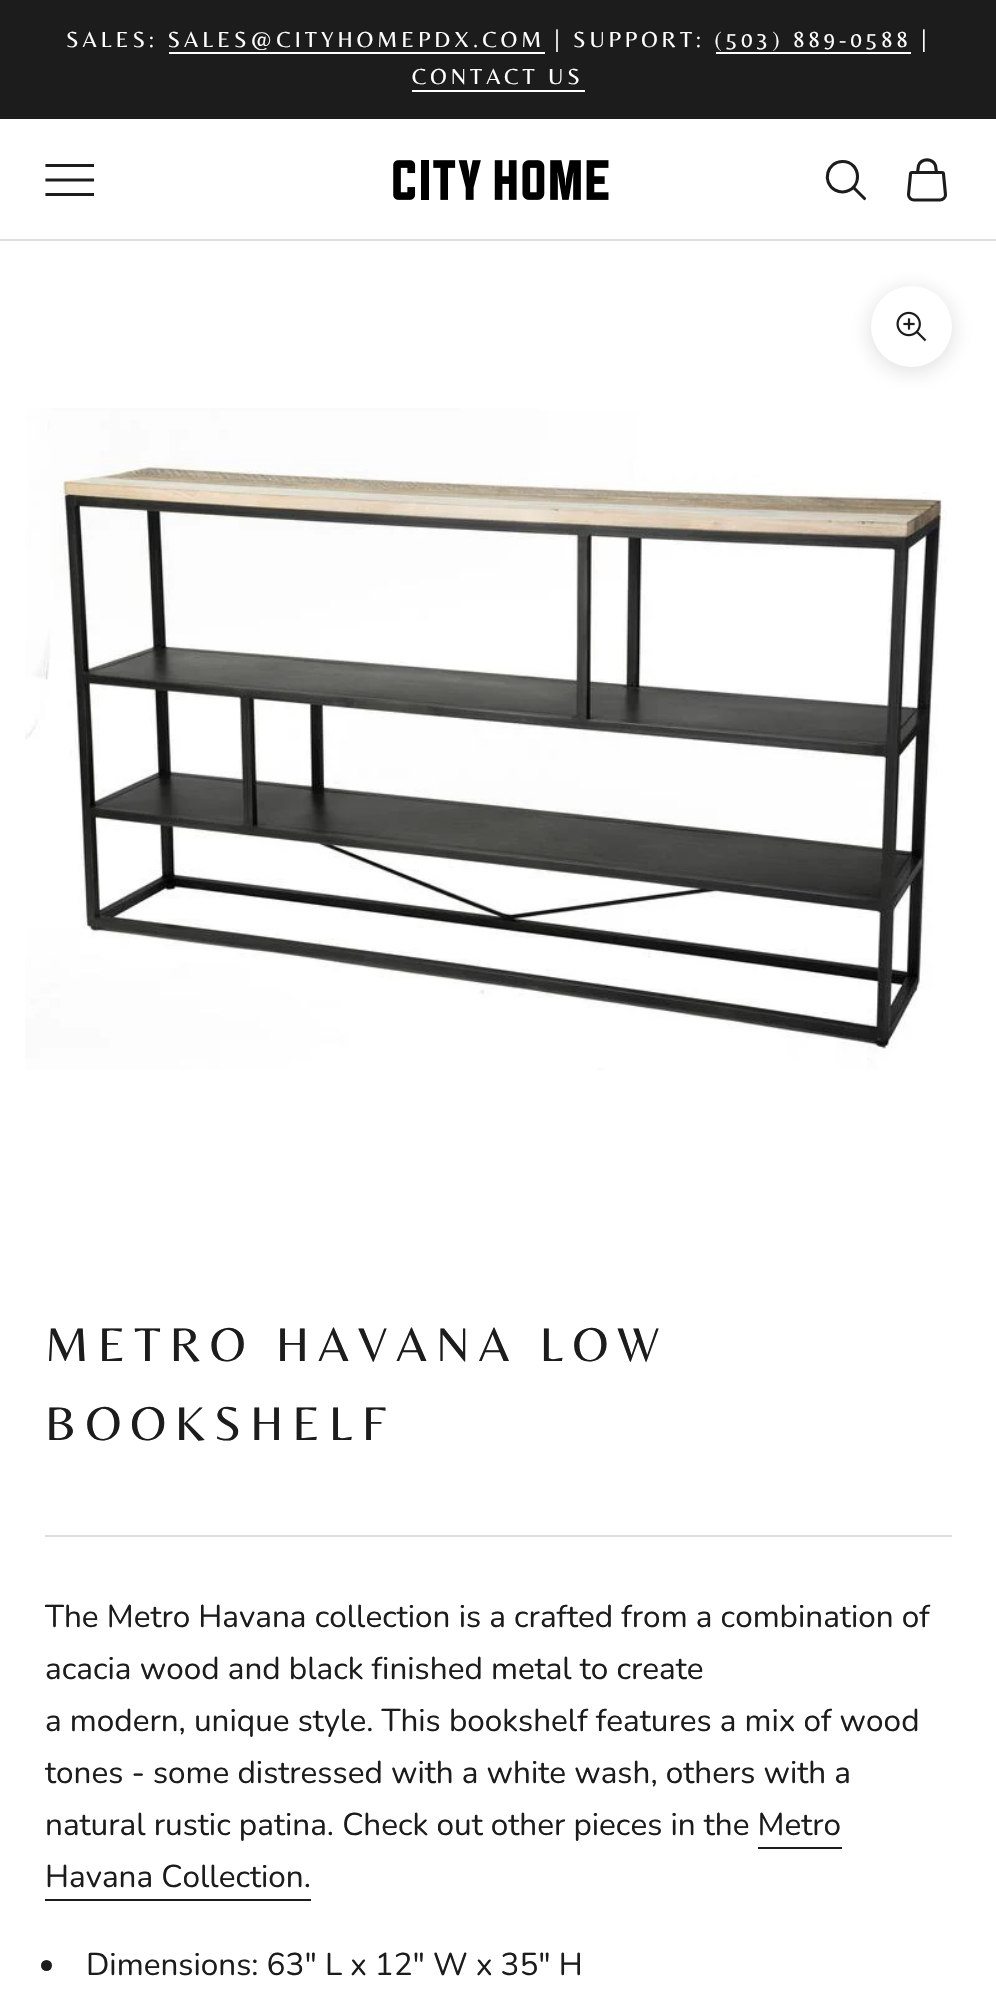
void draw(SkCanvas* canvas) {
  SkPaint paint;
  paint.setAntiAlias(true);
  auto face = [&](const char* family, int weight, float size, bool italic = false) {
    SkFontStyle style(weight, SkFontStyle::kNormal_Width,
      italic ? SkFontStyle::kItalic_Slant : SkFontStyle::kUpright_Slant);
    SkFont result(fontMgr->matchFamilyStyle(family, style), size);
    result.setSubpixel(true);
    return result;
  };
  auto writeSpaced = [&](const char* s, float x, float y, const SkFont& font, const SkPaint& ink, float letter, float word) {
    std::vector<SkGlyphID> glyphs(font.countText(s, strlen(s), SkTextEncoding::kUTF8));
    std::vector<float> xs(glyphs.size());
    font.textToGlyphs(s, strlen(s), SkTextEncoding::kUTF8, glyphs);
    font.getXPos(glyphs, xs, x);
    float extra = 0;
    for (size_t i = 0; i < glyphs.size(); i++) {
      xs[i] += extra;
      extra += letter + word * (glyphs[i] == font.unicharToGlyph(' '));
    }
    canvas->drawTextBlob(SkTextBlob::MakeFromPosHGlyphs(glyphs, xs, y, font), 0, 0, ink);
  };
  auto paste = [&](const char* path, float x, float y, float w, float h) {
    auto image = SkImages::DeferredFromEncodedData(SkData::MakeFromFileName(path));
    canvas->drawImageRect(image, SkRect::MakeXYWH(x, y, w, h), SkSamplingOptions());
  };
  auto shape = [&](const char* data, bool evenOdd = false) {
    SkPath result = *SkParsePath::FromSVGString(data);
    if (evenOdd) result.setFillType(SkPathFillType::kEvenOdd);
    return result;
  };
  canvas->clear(0xffffffff);
  {
    const struct { float x, y, w, h; SkColor color; } items[] = {
      {0, 0, 996, 119, 0xff1c1c1c},
      {169, 52, 376, 2, 0xffffffff},
      {716, 52, 195, 2, 0xffffffff},
      {412, 90, 173, 2, 0xffffffff},
      {0, 239, 996, 2, 0xffdddddd},
    };
    for (auto [x, y, w, h, color] : items) {
      paint.setColor(color);
      canvas->drawRect(SkRect::MakeXYWH(x, y, w, h), paint);
    }
  }
  paint.setStroke(true);
  paint.setStrokeWidth(3.1f);
  paint.setStrokeCap(SkPaint::kSquare_Cap);
  paint.setColor(0xff1c1c1c);
  canvas->drawPath(shape("M47 194.5H92.5M47 180H92.5M47 165.5H92.5"), paint);
  paste("img/1.png", 393, 160, 216, 40);
  paint.setStrokeCap(SkPaint::kButt_Cap);
  canvas->drawPath(shape("M842.5 161.5C827 161.5 821.5 182 835 190C837 191 840 192 842.5 192C863 191 862 161.5 842.5 161.5Z"), paint);
  paint.setStrokeCap(SkPaint::kRound_Cap);
  canvas->drawPath(shape("M854 188L864.5 198.5"), paint);
  paint.setStrokeJoin(SkPaint::kRound_Join);
  canvas->drawPath(shape("M912 172.5C911 172.5 910.5 173 910.5 174L908.5 194.5C908.5 197.5 911 200 914 200H940C943 200 945.5 197.5 945.5 195L943.5 174C943.5 173 943 172.5 942 172.5ZM917.5 172.5L918.5 165.5C921.5 158 932.5 158 935.5 165.5L936.5 172.5"), paint);
  paint.setStroke(false);
  paint.setColor(0x261c1c1c);
  paint.setMaskFilter(SkMaskFilter::MakeBlur(kNormal_SkBlurStyle, 11));
  canvas->drawRoundRect(SkRect::MakeXYWH(871, 290, 81, 81), 40.5f, 40.5f, paint);
  paint.setMaskFilter(nullptr);
  paint.setColor(0xffffffff);
  canvas->drawCircle(911.5f, 326.5f, 40.5f, paint);
  paste("img/2.png", 896, 311, 31, 31);
  paste("img/3.png", 25, 408, 922, 662);
  {
    const struct { float x, y, w, h; SkColor color; } items[] = {
      {45, 1535, 907, 2, 0xffdddddd},
      {758, 1847, 84, 2, 0xff1c1c1c},
      {45, 1899, 266, 2, 0xff1c1c1c},
    };
    for (auto [x, y, w, h, color] : items) {
      paint.setColor(color);
      canvas->drawRect(SkRect::MakeXYWH(x, y, w, h), paint);
    }
  }
  canvas->drawCircle(46.5f, 1965.5f, 5.5f, paint);
  auto f0 = face("Belleza", 400, 22.5f);
  paint.setColor(0xffffffff);
  writeSpaced("SALES: SALES@CITYHOMEPDX.COM | SUPPORT: (503) 889-0588 |", 66, 47, f0, paint, 4.05f, 0);
  writeSpaced("CONTACT US", 412, 84, f0, paint, 4.05f, 0);
  auto f1 = face("Belleza", 400, 49.25f);
  paint.setColor(0xff1c1c1c);
  writeSpaced("METRO HAVANA LOW", 45, 1361, f1, paint, 8.9f, 0);
  writeSpaced("BOOKSHELF", 45, 1440, f1, paint, 8.9f, 0);
  auto f2 = face("Nunito", 400, 31.5f);
  {
    const struct { const char* s; float x, y; } items[] = {
      {"The Metro Havana collection is a crafted from a combination of", 45, 1627},
      {"acacia wood and black finished metal to create", 45, 1679},
      {"a modern, unique style. This bookshelf features a mix of wood", 45, 1731},
      {"tones - some distressed with a white wash, others with a", 45, 1783},
      {"natural rustic patina. Check out other pieces in the Metro", 45, 1835},
      {"Havana Collection.", 45, 1887},
      {"Dimensions: 63\" L x 12\" W x 35\" H", 86, 1975},
    };
    for (auto [s, x, y] : items) {
      canvas->drawString(s, x, y, f2, paint);
    }
  }
}
